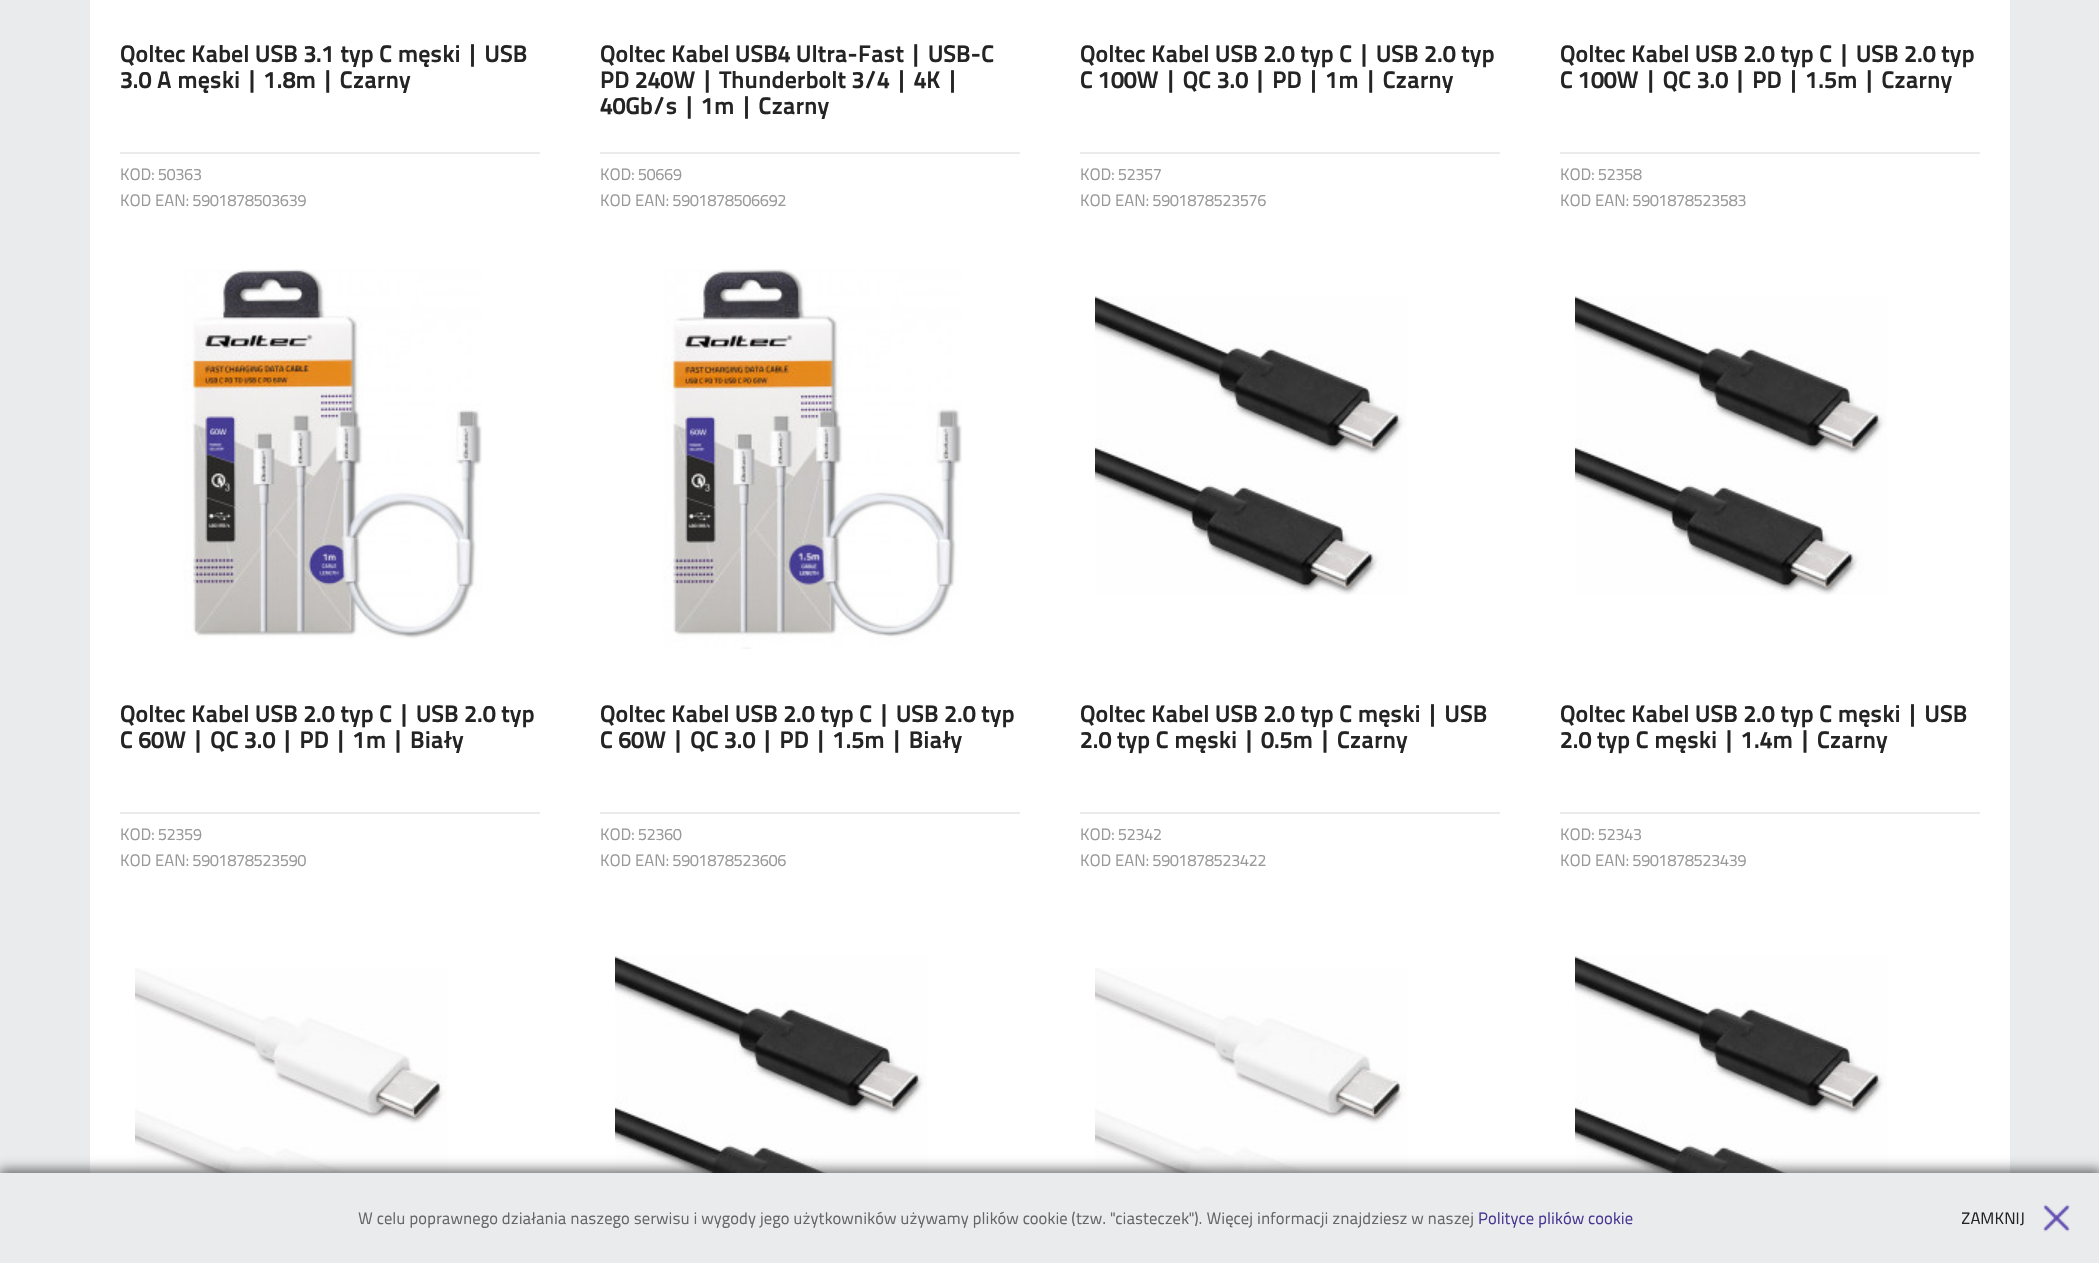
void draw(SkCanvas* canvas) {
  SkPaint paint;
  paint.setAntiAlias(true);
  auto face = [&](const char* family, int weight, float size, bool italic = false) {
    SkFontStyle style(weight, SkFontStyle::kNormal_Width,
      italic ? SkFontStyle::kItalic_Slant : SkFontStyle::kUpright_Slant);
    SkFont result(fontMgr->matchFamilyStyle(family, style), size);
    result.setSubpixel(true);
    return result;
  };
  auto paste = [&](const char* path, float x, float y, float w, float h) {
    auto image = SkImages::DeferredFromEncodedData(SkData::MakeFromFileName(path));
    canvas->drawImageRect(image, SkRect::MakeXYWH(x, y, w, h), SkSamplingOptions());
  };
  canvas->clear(0xffe9ebec);
  {
    const struct { float x, y, w, h; SkColor color; } items[] = {
      {90, 0, 1920, 1173, 0xffffffff},
      {120, 152, 420, 2, 0xffe9ebec},
      {600, 152, 420, 2, 0xffe9ebec},
      {1080, 152, 420, 2, 0xffe9ebec},
      {1560, 152, 420, 2, 0xffe9ebec},
    };
    for (auto [x, y, w, h, color] : items) {
      paint.setColor(color);
      canvas->drawRect(SkRect::MakeXYWH(x, y, w, h), paint);
    }
  }
  paste("img/1.png", 183, 269, 299, 370);
  canvas->drawRect(SkRect::MakeXYWH(120, 812, 420, 2), paint);
  paste("img/2.png", 663, 269, 299, 380);
  canvas->drawRect(SkRect::MakeXYWH(600, 812, 420, 2), paint);
  paste("img/3.png", 1095, 296, 312, 299);
  canvas->drawRect(SkRect::MakeXYWH(1080, 812, 420, 2), paint);
  paste("img/4.png", 1575, 296, 312, 299);
  canvas->drawRect(SkRect::MakeXYWH(1560, 812, 420, 2), paint);
  paste("img/5.png", 135, 968, 312, 205);
  paste("img/6.png", 615, 956, 312, 217);
  paste("img/7.png", 1095, 968, 312, 205);
  paste("img/6.png", 1575, 956, 312, 217);
  paint.setColor(0xbf323232);
  paint.setMaskFilter(SkMaskFilter::MakeBlur(kNormal_SkBlurStyle, 6));
  canvas->drawRect(SkRect::MakeXYWH(-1, 1170, 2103, 93), paint);
  paint.setMaskFilter(nullptr);
  paint.setColor(0xffe9ebec);
  canvas->drawRect(SkRect::MakeXYWH(0, 1173, 2099, 90), paint);
  paste("img/8.png", 2043, 1204, 27, 28);
  auto f0 = face("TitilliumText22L", 700, 24);
  paint.setColor(0xff242424);
  canvas->drawString("Qoltec Kabel USB 3.1 typ C męski | USB", 120, 62, f0, paint);
  canvas->drawString("3.0 A męski | 1.8m | Czarny", 120, 88, f0, paint);
  auto f1 = face("TitilliumText22L", 400, 16.5f);
  paint.setColor(0xff999999);
  canvas->drawString("KOD: 50363", 120, 180, f1, paint);
  canvas->drawString("KOD EAN: 5901878503639", 120, 206, f1, paint);
  paint.setColor(0xff242424);
  {
    const struct { const char* s; float x, y; } items[] = {
      {"Qoltec Kabel USB4 Ultra-Fast | USB-C", 600, 62},
      {"PD 240W | Thunderbolt 3/4 | 4K |", 600, 88},
      {"40Gb/s | 1m | Czarny", 600, 114},
    };
    for (auto [s, x, y] : items) {
      canvas->drawString(s, x, y, f0, paint);
    }
  }
  paint.setColor(0xff999999);
  canvas->drawString("KOD: 50669", 600, 180, f1, paint);
  canvas->drawString("KOD EAN: 5901878506692", 600, 206, f1, paint);
  paint.setColor(0xff242424);
  canvas->drawString("Qoltec Kabel USB 2.0 typ C | USB 2.0 typ", 1080, 62, f0, paint);
  canvas->drawString("C 100W | QC 3.0 | PD | 1m | Czarny", 1080, 88, f0, paint);
  paint.setColor(0xff999999);
  canvas->drawString("KOD: 52357", 1080, 180, f1, paint);
  canvas->drawString("KOD EAN: 5901878523576", 1080, 206, f1, paint);
  paint.setColor(0xff242424);
  canvas->drawString("Qoltec Kabel USB 2.0 typ C | USB 2.0 typ", 1560, 62, f0, paint);
  canvas->drawString("C 100W | QC 3.0 | PD | 1.5m | Czarny", 1560, 88, f0, paint);
  paint.setColor(0xff999999);
  canvas->drawString("KOD: 52358", 1560, 180, f1, paint);
  canvas->drawString("KOD EAN: 5901878523583", 1560, 206, f1, paint);
  paint.setColor(0xff242424);
  canvas->drawString("Qoltec Kabel USB 2.0 typ C | USB 2.0 typ", 120, 722, f0, paint);
  canvas->drawString("C 60W | QC 3.0 | PD | 1m | Biały", 120, 748, f0, paint);
  paint.setColor(0xff999999);
  canvas->drawString("KOD: 52359", 120, 840, f1, paint);
  canvas->drawString("KOD EAN: 5901878523590", 120, 866, f1, paint);
  paint.setColor(0xff242424);
  canvas->drawString("Qoltec Kabel USB 2.0 typ C | USB 2.0 typ", 600, 722, f0, paint);
  canvas->drawString("C 60W | QC 3.0 | PD | 1.5m | Biały", 600, 748, f0, paint);
  paint.setColor(0xff999999);
  canvas->drawString("KOD: 52360", 600, 840, f1, paint);
  canvas->drawString("KOD EAN: 5901878523606", 600, 866, f1, paint);
  paint.setColor(0xff242424);
  canvas->drawString("Qoltec Kabel USB 2.0 typ C męski | USB", 1080, 722, f0, paint);
  canvas->drawString("2.0 typ C męski | 0.5m | Czarny", 1080, 748, f0, paint);
  paint.setColor(0xff999999);
  canvas->drawString("KOD: 52342", 1080, 840, f1, paint);
  canvas->drawString("KOD EAN: 5901878523422", 1080, 866, f1, paint);
  paint.setColor(0xff242424);
  canvas->drawString("Qoltec Kabel USB 2.0 typ C męski | USB", 1560, 722, f0, paint);
  canvas->drawString("2.0 typ C męski | 1.4m | Czarny", 1560, 748, f0, paint);
  paint.setColor(0xff999999);
  canvas->drawString("KOD: 52343", 1560, 840, f1, paint);
  canvas->drawString("KOD EAN: 5901878523439", 1560, 866, f1, paint);
  paint.setColor(0xff666666);
  canvas->drawString("W celu poprawnego działania naszego serwisu i wygody jego użytkowników używamy plików cookie (tzw. \"ciasteczek\"). Więcej informacji znajdziesz w naszej", 358, 1224, f1, paint);
  paint.setColor(0xff493692);
  canvas->drawString("Polityce plików cookie", 1478, 1224, f1, paint);
  paint.setColor(0xff242424);
  canvas->drawString("ZAMKNIJ", 1961, 1224, f1, paint);
}
